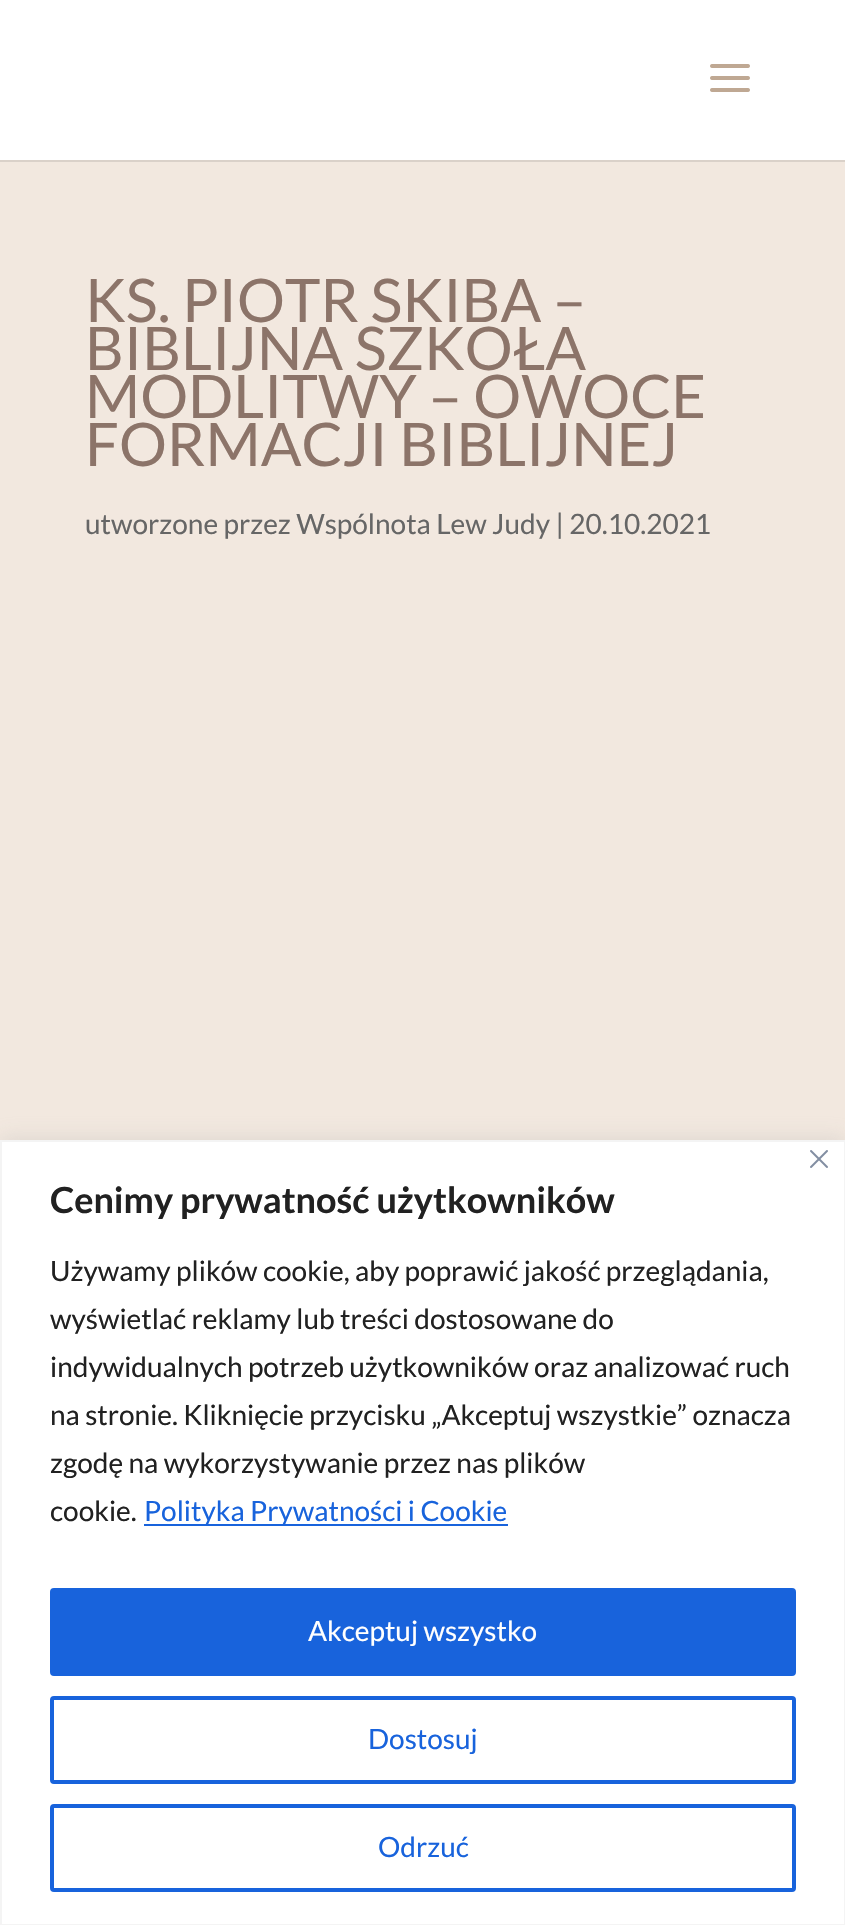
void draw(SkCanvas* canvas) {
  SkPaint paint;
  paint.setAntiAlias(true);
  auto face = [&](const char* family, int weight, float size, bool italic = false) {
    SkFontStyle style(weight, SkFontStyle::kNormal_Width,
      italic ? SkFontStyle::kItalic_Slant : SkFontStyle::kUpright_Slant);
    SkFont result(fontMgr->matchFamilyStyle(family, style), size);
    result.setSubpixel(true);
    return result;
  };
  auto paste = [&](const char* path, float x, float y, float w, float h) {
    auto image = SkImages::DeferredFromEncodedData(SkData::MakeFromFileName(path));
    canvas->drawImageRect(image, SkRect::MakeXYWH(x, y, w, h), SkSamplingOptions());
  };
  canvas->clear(0xfff2e8df);
  paint.setColor(0xffdad1c9);
  canvas->drawRect(SkRect::MakeXYWH(0, 160, 845, 2), paint);
  paint.setColor(0xffffffff);
  canvas->drawRect(SkRect::MakeXYWH(0, 0, 845, 160), paint);
  paste("img/1.png", 710, 64, 40, 28);
  paint.setColor(0x4dacabab);
  paint.setMaskFilter(SkMaskFilter::MakeBlur(kNormal_SkBlurStyle, 10));
  canvas->drawRect(SkRect::MakeXYWH(0, 1138, 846, 786), paint);
  paint.setMaskFilter(nullptr);
  paint.setColor(0xffffffff);
  canvas->drawRect(SkRect::MakeXYWH(1, 1141, 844, 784), paint);
  paint.setStroke(true);
  paint.setStrokeWidth(2);
  paint.setColor(0xfff4f4f4);
  canvas->drawRect(SkRect::MakeXYWH(1, 1141, 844, 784), paint);
  paste("img/2.png", 810, 1150, 18, 18);
  paint.setStroke(false);
  paint.setColor(0xff1863dc);
  canvas->drawRect(SkRect::MakeXYWH(144, 1524, 364, 2), paint);
  canvas->drawRoundRect(SkRect::MakeXYWH(52, 1590, 742, 84), 2, 2, paint);
  paint.setStroke(true);
  paint.setStrokeWidth(4);
  canvas->drawRoundRect(SkRect::MakeXYWH(52, 1590, 742, 84), 2, 2, paint);
  canvas->drawRoundRect(SkRect::MakeXYWH(52, 1698, 742, 84), 2, 2, paint);
  canvas->drawRoundRect(SkRect::MakeXYWH(52, 1806, 742, 84), 2, 2, paint);
  auto f0 = face("Lato", 400, 60);
  paint.setStroke(false);
  paint.setColor(0xff8c7469);
  {
    const struct { const char* s; float x, y; } items[] = {
      {"KS. PIOTR SKIBA –", 85, 322},
      {"BIBLIJNA SZKOŁA", 85, 370},
      {"MODLITWY – OWOCE", 85, 418},
      {"FORMACJI BIBLIJNEJ", 85, 466},
    };
    for (auto [s, x, y] : items) {
      canvas->drawString(s, x, y, f0, paint);
    }
  }
  auto f1 = face("Lato", 400, 28);
  paint.setColor(0xff666666);
  canvas->drawString("utworzone przez Wspólnota Lew Judy | 20.10.2021", 85, 534, f1, paint);
  auto f2 = face("Lato", 700, 36);
  paint.setColor(0xff212121);
  canvas->drawString("Cenimy prywatność użytkowników", 50, 1213, f2, paint);
  {
    const struct { const char* s; float x, y; } items[] = {
      {"Używamy plików cookie, aby poprawić jakość przeglądania,", 50, 1281},
      {"wyświetlać reklamy lub treści dostosowane do", 50, 1329},
      {"indywidualnych potrzeb użytkowników oraz analizować ruch", 50, 1377},
      {"na stronie. Kliknięcie przycisku „Akceptuj wszystkie” oznacza", 50, 1425},
      {"zgodę na wykorzystywanie przez nas plików", 50, 1473},
      {"cookie.", 50, 1521},
    };
    for (auto [s, x, y] : items) {
      canvas->drawString(s, x, y, f1, paint);
    }
  }
  paint.setColor(0xff1863dc);
  canvas->drawString("Polityka Prywatności i Cookie", 144, 1521, f1, paint);
  paint.setColor(0xffffffff);
  canvas->drawString("Akceptuj wszystko", 308, 1641, f1, paint);
  paint.setColor(0xff1863dc);
  canvas->drawString("Dostosuj", 368, 1749, f1, paint);
  canvas->drawString("Odrzuć", 378, 1857, f1, paint);
}
